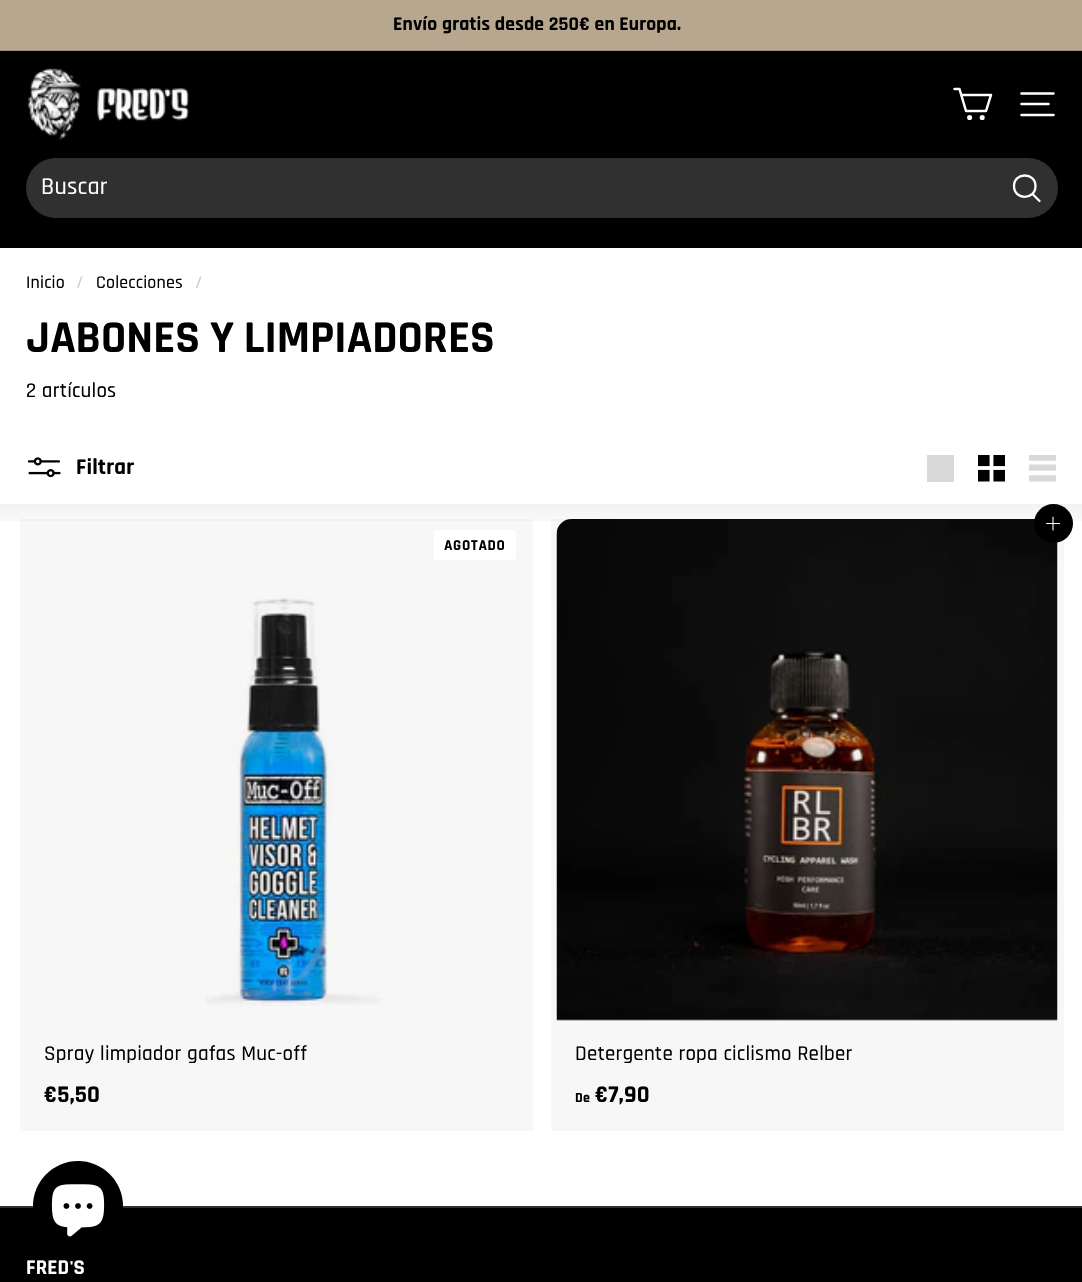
void draw(SkCanvas* canvas) {
  SkPaint paint;
  paint.setAntiAlias(true);
  auto face = [&](const char* family, int weight, float size, bool italic = false) {
    SkFontStyle style(weight, SkFontStyle::kNormal_Width,
      italic ? SkFontStyle::kItalic_Slant : SkFontStyle::kUpright_Slant);
    SkFont result(fontMgr->matchFamilyStyle(family, style), size);
    result.setSubpixel(true);
    return result;
  };
  auto writeSpaced = [&](const char* s, float x, float y, const SkFont& font, const SkPaint& ink, float letter, float word) {
    std::vector<SkGlyphID> glyphs(font.countText(s, strlen(s), SkTextEncoding::kUTF8));
    std::vector<float> xs(glyphs.size());
    font.textToGlyphs(s, strlen(s), SkTextEncoding::kUTF8, glyphs);
    font.getXPos(glyphs, xs, x);
    float extra = 0;
    for (size_t i = 0; i < glyphs.size(); i++) {
      xs[i] += extra;
      extra += letter + word * (glyphs[i] == font.unicharToGlyph(' '));
    }
    canvas->drawTextBlob(SkTextBlob::MakeFromPosHGlyphs(glyphs, xs, y, font), 0, 0, ink);
  };
  auto paste = [&](const char* path, float x, float y, float w, float h) {
    auto image = SkImages::DeferredFromEncodedData(SkData::MakeFromFileName(path));
    canvas->drawImageRect(image, SkRect::MakeXYWH(x, y, w, h), SkSamplingOptions());
  };
  auto shape = [&](const char* data, bool evenOdd = false) {
    SkPath result = *SkParsePath::FromSVGString(data);
    if (evenOdd) result.setFillType(SkPathFillType::kEvenOdd);
    return result;
  };
  canvas->clear(0xffffffff);
  {
    const struct { float x, y, w, h; SkColor color; } items[] = {
      {0, 0, 1082, 50, 0xffb6a78e},
      {0, 50, 1082, 1, 0xff9b8e79},
      {0, 51, 1082, 197, 0xff000000},
    };
    for (auto [x, y, w, h, color] : items) {
      paint.setColor(color);
      canvas->drawRect(SkRect::MakeXYWH(x, y, w, h), paint);
    }
  }
  paste("img/1.png", 27, 68, 163, 72);
  paint.setStroke(true);
  paint.setStrokeWidth(2.5f);
  paint.setStrokeCap(SkPaint::kRound_Cap);
  paint.setStrokeJoin(SkPaint::kRound_Join);
  paint.setColor(0xffffffff);
  canvas->drawPath(shape("M961.5 95H991L986 111H966L959.5 89H954.5"), paint);
  paint.setStrokeCap(SkPaint::kButt_Cap);
  paint.setStrokeJoin(SkPaint::kMiter_Join);
  canvas->drawCircle(969.6f, 117.5f, 1.3f, paint);
  canvas->drawCircle(982.2f, 117.5f, 1.3f, paint);
  paint.setStrokeCap(SkPaint::kRound_Cap);
  paint.setStrokeJoin(SkPaint::kRound_Join);
  canvas->drawPath(shape("M1021.5 93.5H1053.5M1021.5 104H1048.5M1021.5 115H1053.5"), paint);
  paint.setStroke(false);
  paint.setColor(0xff303030);
  canvas->drawRoundRect(SkRect::MakeXYWH(26, 158, 1032, 60), 30, 30, paint);
  paint.setStroke(true);
  paint.setStrokeWidth(2.3f);
  paint.setColor(0xffffffff);
  canvas->drawPath(shape("M1035.5 186C1035.5 200.5 1014 200.5 1014 186C1014 172 1035.5 172 1035.5 186ZM1039.5 201L1032.5 194"), paint);
  paste("img/2.png", 27, 457, 34, 21);
  paint.setStroke(false);
  paint.setColor(0xffd9d9d9);
  canvas->drawRect(SkRect::MakeXYWH(927, 455, 27, 27), paint);
  paste("img/3.png", 978, 455, 27, 27);
  paste("img/4.png", 1029, 455, 27, 27);
  paste("img/5.png", 205, 597, 178, 409);
  paint.setColor(0x08000000);
  canvas->drawRect(SkRect::MakeXYWH(20, 519, 513, 612), paint);
  paste("img/6.png", 556, 519, 502, 502);
  canvas->drawRect(SkRect::MakeXYWH(551, 519, 513, 612), paint);
  paint.setColor(0xff000000);
  canvas->drawCircle(1053.5f, 523.5f, 19.5f, paint);
  paint.setStroke(true);
  paint.setStrokeWidth(1.1f);
  paint.setColor(0xffffffff);
  canvas->drawPath(shape("M1053 517V530M1059.5 523.5H1046.5"), paint);
  paint.setStroke(false);
  {
    const SkColor colors[] = {0x0d000000, 0x00000000};
    const float stops[] = {0, 1};
    const SkPoint ends[] = {{542, 504}, {542, 534}};
    paint.setShader(SkGradientShader::MakeLinear(ends, colors, stops, 2, SkTileMode::kClamp));
    paint.setAlpha(255);
  }
  canvas->drawRect(SkRect::MakeXYWH(0, 504, 1082, 17), paint);
  paint.setShader(nullptr);
  paint.setColor(0xffffffff);
  canvas->drawPath(shape("M434 530H513C514.5 530 516 531.5 516 533V557C516 558.5 514.5 560 513 560H434Z"), paint);
  paint.setColor(0xff000000);
  canvas->drawRect(SkRect::MakeXYWH(0, 1208, 1082, 74), paint);
  paint.setColor(0xff303030);
  canvas->drawRect(SkRect::MakeXYWH(0, 1206, 1082, 2), paint);
  paint.setColor(0xff000000);
  canvas->drawCircle(78, 1206, 45, paint);
  paste("img/7.png", 51, 1184, 54, 53);
  auto f0 = face("Rajdhani", 700, 19.5f);
  writeSpaced("Envío gratis desde 250€ en Europa.", 393, 30, f0, paint, 0.2f, 0);
  auto f1 = face("Rajdhani", 500, 24);
  paint.setColor(0xffffffff);
  writeSpaced("Buscar", 41, 194, f1, paint, 0.25f, 0);
  auto f2 = face("Rajdhani", 500, 18);
  paint.setColor(0xff000000);
  writeSpaced("Inicio", 26, 288, f2, paint, 0.2f, 0);
  paint.setColor(0xffcccccc);
  writeSpaced("/", 76, 288, f2, paint, 0.2f, 0);
  paint.setColor(0xff000000);
  writeSpaced("Colecciones", 96, 288, f2, paint, 0.2f, 0);
  paint.setColor(0xffcccccc);
  writeSpaced("/", 195, 288, f2, paint, 0.2f, 0);
  auto f3 = face("Rajdhani", 700, 45.9f);
  paint.setColor(0xff000000);
  canvas->drawString("JABONES Y LIMPIADORES", 26, 352, f3, paint);
  auto f4 = face("Rajdhani", 500, 21);
  writeSpaced("2 artículos", 26, 397, f4, paint, 0.2f, 0);
  auto f5 = face("Rajdhani", 700, 22.5f);
  writeSpaced("Filtrar", 76, 474, f5, paint, 0.25f, 0);
  auto f6 = face("Rajdhani", 700, 15);
  writeSpaced("AGOTADO", 444, 550, f6, paint, 0.75f, 0);
  writeSpaced("Spray limpiador gafas Muc-off", 44, 1060, f4, paint, 0.2f, 0);
  auto f7 = face("Rajdhani", 700, 24);
  writeSpaced("€5,50", 44, 1102, f7, paint, 0.2f, 0);
  writeSpaced("Detergente ropa ciclismo Relber", 575, 1060, f4, paint, 0.2f, 0);
  auto f8 = face("Rajdhani", 700, 14);
  writeSpaced("De", 575, 1102, f8, paint, 0.2f, 0);
  writeSpaced("€7,90", 595, 1102, f7, paint, 0.2f, 0);
  auto f9 = face("Rajdhani", 700, 21);
  paint.setColor(0xffffffff);
  writeSpaced("FRED'S", 26, 1274, f9, paint, 0.2f, 0);
}
